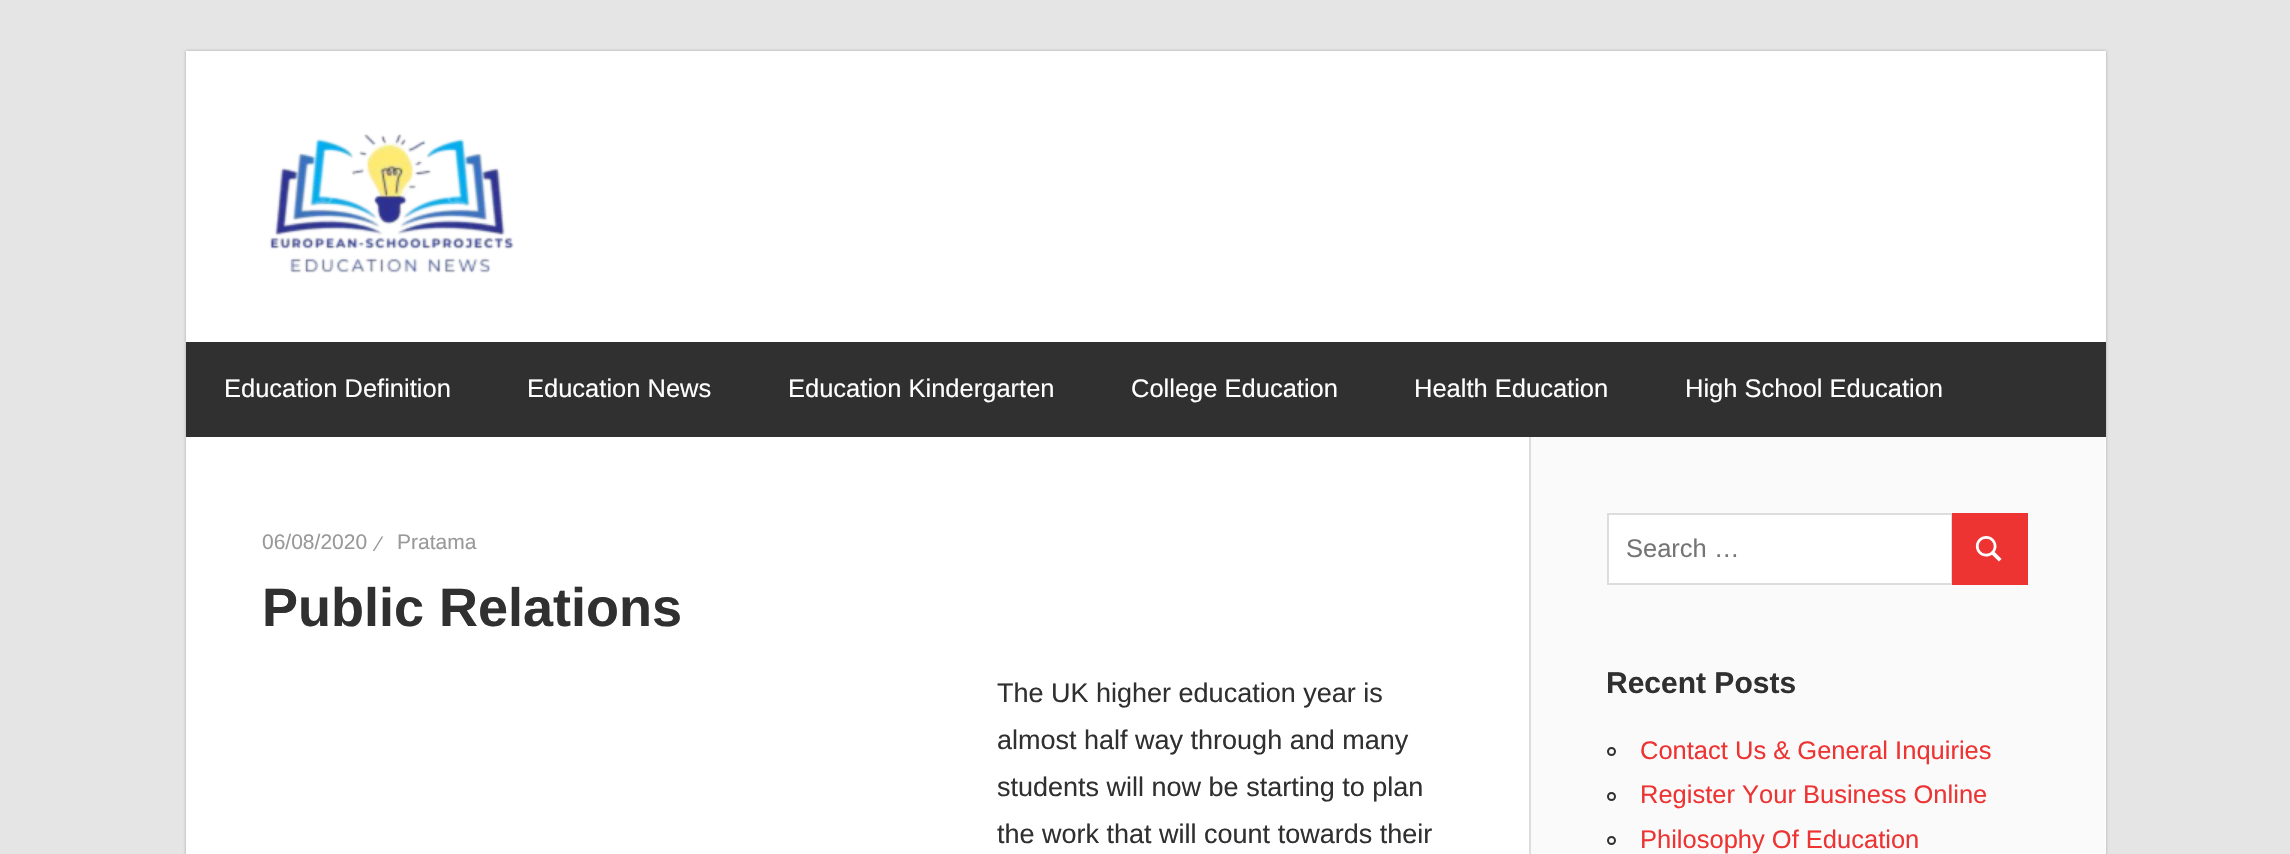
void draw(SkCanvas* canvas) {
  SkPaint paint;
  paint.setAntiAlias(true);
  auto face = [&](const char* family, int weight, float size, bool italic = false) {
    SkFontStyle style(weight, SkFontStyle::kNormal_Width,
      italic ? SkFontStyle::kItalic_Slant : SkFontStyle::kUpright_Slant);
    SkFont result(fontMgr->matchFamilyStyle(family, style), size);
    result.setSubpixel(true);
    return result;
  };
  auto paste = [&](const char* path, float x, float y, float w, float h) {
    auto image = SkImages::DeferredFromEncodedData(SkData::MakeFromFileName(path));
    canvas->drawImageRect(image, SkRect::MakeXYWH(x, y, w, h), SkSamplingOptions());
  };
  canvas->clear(0xffe5e5e5);
  paint.setColor(0xffaaaaaa);
  paint.setMaskFilter(SkMaskFilter::MakeBlur(kNormal_SkBlurStyle, 1.5f));
  canvas->drawRect(SkRect::MakeXYWH(186, 51, 1920, 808), paint);
  paint.setMaskFilter(nullptr);
  paint.setColor(0xffffffff);
  canvas->drawRect(SkRect::MakeXYWH(186, 51, 1920, 803), paint);
  paste("img/1.png", 269, 133, 245, 140);
  {
    const struct { float x, y, w, h; SkColor color; } items[] = {
      {186, 342, 1920, 95, 0xff303030},
      {1531, 437, 574, 417, 0xfffafafa},
      {1529, 437, 2, 417, 0xffdddddd},
    };
    for (auto [x, y, w, h, color] : items) {
      paint.setColor(color);
      canvas->drawRect(SkRect::MakeXYWH(x, y, w, h), paint);
    }
  }
  paint.setColor(0xffffffff);
  canvas->drawRect(SkRect::MakeXYWH(1608, 514, 344, 70), paint);
  paint.setStroke(true);
  paint.setStrokeWidth(2);
  paint.setColor(0xffdddddd);
  canvas->drawRect(SkRect::MakeXYWH(1608, 514, 344, 70), paint);
  paint.setStroke(false);
  paint.setColor(0xffee3333);
  canvas->drawRect(SkRect::MakeXYWH(1952, 513, 76, 72), paint);
  paste("img/2.png", 1975, 536, 27, 26);
  paint.setStroke(true);
  paint.setColor(0xff303030);
  canvas->drawCircle(1611.5f, 751.5f, 3.5f, paint);
  canvas->drawCircle(1611.5f, 796.5f, 3.5f, paint);
  canvas->drawCircle(1611.5f, 840.5f, 3.5f, paint);
  auto f0 = face("Liberation Sans", 400, 25.5f);
  paint.setStroke(false);
  paint.setColor(0xffffffff);
  {
    const struct { const char* s; float x, y; } items[] = {
      {"Education Definition", 224, 397},
      {"Education News", 527, 397},
      {"Education Kindergarten", 788, 397},
      {"College Education", 1131, 397},
      {"Health Education", 1414, 397},
      {"High School Education", 1685, 397},
    };
    for (auto [s, x, y] : items) {
      canvas->drawString(s, x, y, f0, paint);
    }
  }
  auto f1 = face("Liberation Sans", 400, 21);
  paint.setColor(0xff999999);
  {
    const struct { const char* s; float x, y; } items[] = {
      {"06/08/2020", 262, 549},
      {"⁄", 377, 551},
      {"Pratama", 397, 549},
    };
    for (auto [s, x, y] : items) {
      canvas->drawString(s, x, y, f1, paint);
    }
  }
  auto f2 = face("Liberation Sans", 700, 54);
  paint.setColor(0xff303030);
  canvas->drawString("Public Relations", 262, 626, f2, paint);
  auto f3 = face("Liberation Sans", 400, 27);
  {
    const struct { const char* s; float x, y; } items[] = {
      {"The UK higher education year is", 997, 702},
      {"almost half way through and many", 997, 749},
      {"students will now be starting to plan", 997, 796},
      {"the work that will count towards their", 997, 843},
    };
    for (auto [s, x, y] : items) {
      canvas->drawString(s, x, y, f3, paint);
    }
  }
  paint.setColor(0xff757575);
  canvas->drawString("Search …", 1626, 557, f0, paint);
  auto f4 = face("Liberation Sans", 700, 30);
  paint.setColor(0xff303030);
  canvas->drawString("Recent Posts", 1606, 693, f4, paint);
  paint.setColor(0xffee3333);
  {
    const struct { const char* s; float x, y; } items[] = {
      {"Contact Us & General Inquiries", 1640, 759},
      {"Register Your Business Online", 1640, 803},
      {"Philosophy Of Education", 1640, 848},
    };
    for (auto [s, x, y] : items) {
      canvas->drawString(s, x, y, f0, paint);
    }
  }
}
